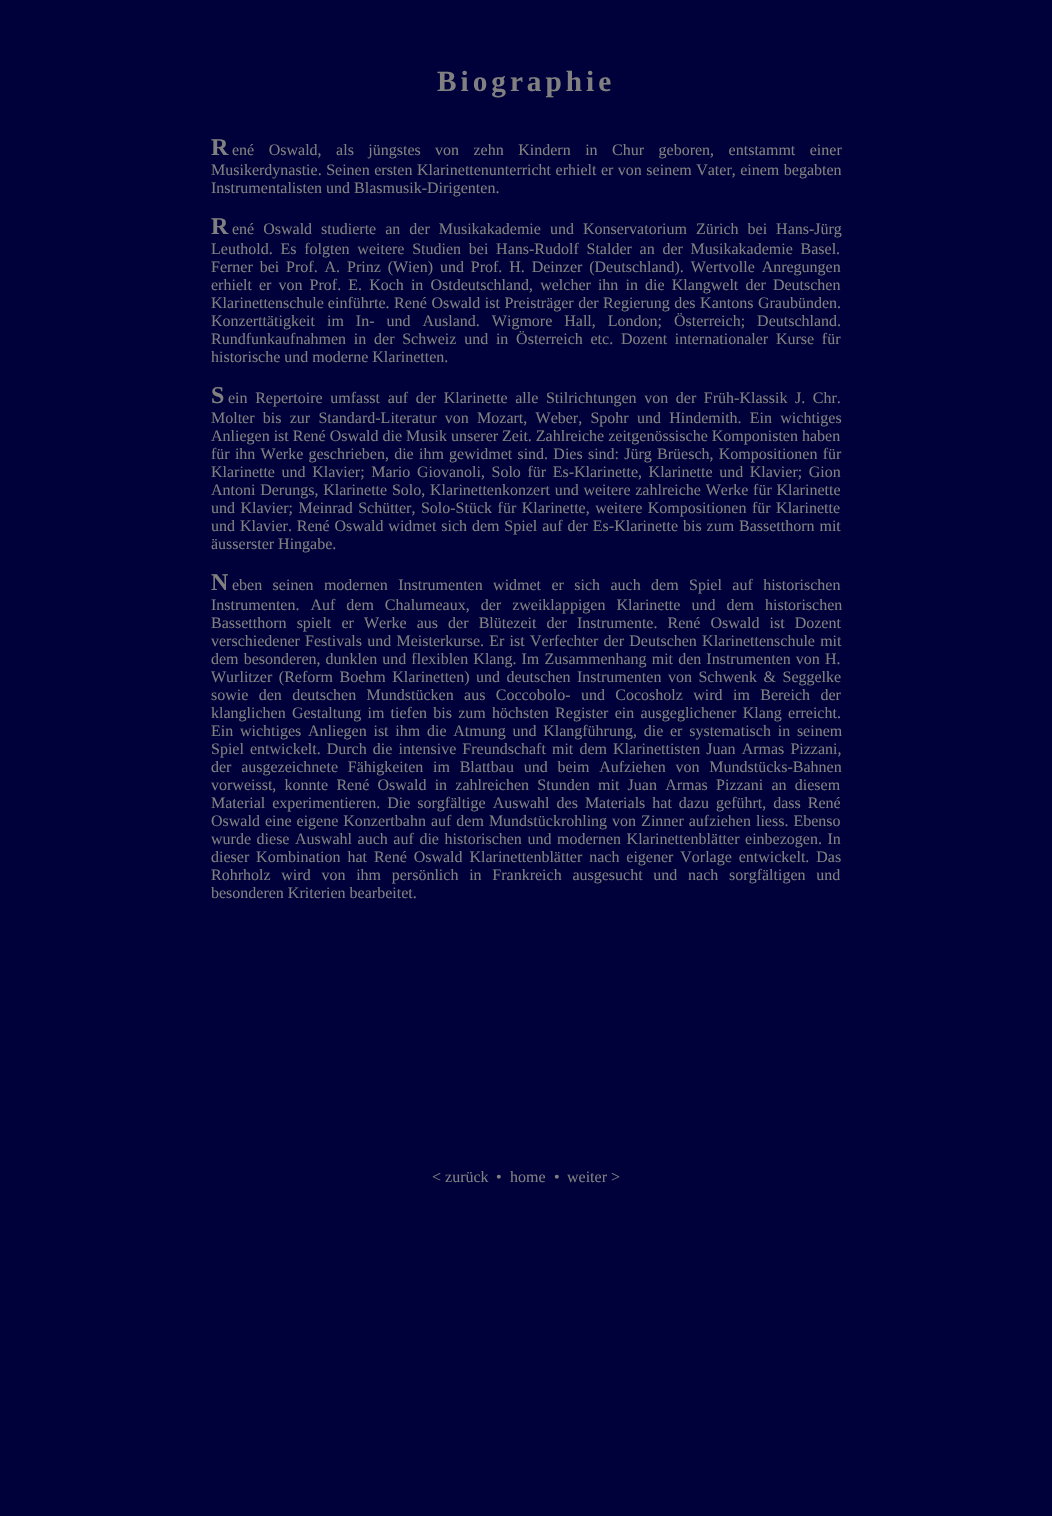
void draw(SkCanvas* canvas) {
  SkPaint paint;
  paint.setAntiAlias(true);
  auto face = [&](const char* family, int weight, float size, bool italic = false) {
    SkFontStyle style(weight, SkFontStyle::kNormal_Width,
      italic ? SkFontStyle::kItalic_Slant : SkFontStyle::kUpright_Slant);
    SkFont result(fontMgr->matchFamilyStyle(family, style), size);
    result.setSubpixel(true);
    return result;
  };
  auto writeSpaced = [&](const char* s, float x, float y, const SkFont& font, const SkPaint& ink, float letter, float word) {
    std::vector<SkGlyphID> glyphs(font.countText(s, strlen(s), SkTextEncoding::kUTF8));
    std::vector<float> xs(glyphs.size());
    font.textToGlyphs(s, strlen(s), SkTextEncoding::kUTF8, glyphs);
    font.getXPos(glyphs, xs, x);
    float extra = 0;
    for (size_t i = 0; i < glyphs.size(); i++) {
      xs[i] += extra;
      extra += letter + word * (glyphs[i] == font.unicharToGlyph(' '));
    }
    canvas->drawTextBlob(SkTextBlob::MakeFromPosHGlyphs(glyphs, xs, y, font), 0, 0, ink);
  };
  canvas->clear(0xff00003a);
  auto f0 = face("Liberation Serif", 700, 29.25f);
  paint.setColor(0xff808080);
  writeSpaced("Biographie", 437, 91, f0, paint, 4, 0);
  auto f1 = face("Liberation Serif", 700, 24);
  writeSpaced("R", 211, 155, f1, paint, 4, 0);
  auto f2 = face("Liberation Serif", 400, 16);
  writeSpaced("ené Oswald, als jüngstes", 232, 155, f2, paint, 0, 10.5f);
  writeSpaced("von zehn Kindern in Chur geboren, entstammt einer", 435, 155, f2, paint, 0, 10.5f);
  writeSpaced("Musikerdynastie. Seinen ersten Klarinettenunterricht erhielt er von seinem Vater, einem begabten", 211, 175, f2, paint, 0, 0.5f);
  canvas->drawString("Instrumentalisten und Blasmusik-Dirigenten.", 211, 193, f2, paint);
  writeSpaced("R", 211, 234, f1, paint, 4, 0);
  writeSpaced("ené Oswald studierte an der Musikakademie und Konservatorium Zürich bei Hans-Jürg", 232, 234, f2, paint, 0, 5);
  writeSpaced("Leuthold. Es folgten weitere Studien bei Hans-Rudolf Stalder an der Musikakademie Basel.", 211, 254, f2, paint, 0, 3.75f);
  writeSpaced("Ferner bei Prof. A. Prinz (Wien) und Prof. H. Deinzer (Deutschland). Wertvolle Anregungen", 211, 272, f2, paint, 0, 2.9f);
  writeSpaced("erhielt er von Prof. E. Koch in Ostdeutschland, welcher ihn in die Klangwelt der Deutschen", 211, 290, f2, paint, 0, 3.1f);
  canvas->drawString("Klarinettenschule einführte.", 211, 308, f2, paint);
  writeSpaced("René Oswald ist Preisträger der Regierung des Kantons Graubünden.", 394, 308, f2, paint, 0, 0.5f);
  writeSpaced("Konzerttätigkeit im In- und Ausland. Wigmore Hall, London; Österreich; Deutschland.", 211, 326, f2, paint, 0, 8);
  writeSpaced("Rundfunkaufnahmen in der Schweiz und in Österreich etc. Dozent internationaler Kurse für", 211, 344, f2, paint, 0, 3.75f);
  canvas->drawString("historische und moderne Klarinetten.", 211, 362, f2, paint);
  writeSpaced("S", 211, 403, f1, paint, 4, 0);
  writeSpaced("ein Repertoire umfasst auf der Klarinette alle Stilrichtungen von der Früh-Klassik J. Chr.", 228, 403, f2, paint, 0, 3.6f);
  writeSpaced("Molter bis zur Standard-Literatur von Mozart, Weber, Spohr und Hindemith. Ein wichtiges", 211, 423, f2, paint, 0, 4.25f);
  canvas->drawString("Anliegen ist René Oswald die Musik unserer Zeit. Zahlreiche zeitgenössische Komponisten haben", 211, 441, f2, paint);
  writeSpaced("für ihn Werke geschrieben, die ihm gewidmet sind. Dies sind: Jürg Brüesch, Kompositionen für", 211, 459, f2, paint, 0, 1.25f);
  writeSpaced("Klarinette und Klavier; Mario Giovanoli, Solo für Es-Klarinette, Klarinette und Klavier; Gion", 211, 477, f2, paint, 0, 2.6f);
  writeSpaced("Antoni Derungs, Klarinette Solo, Klarinettenkonzert und weitere zahlreiche Werke für Klarinette", 211, 495, f2, paint, 0, 0.75f);
  writeSpaced("und Klavier; Meinrad Schütter, Solo-Stück für Klarinette, weitere Kompositionen für Klarinette", 211, 513, f2, paint, 0, 1.5f);
  writeSpaced("und Klavier. René Oswald widmet sich dem Spiel auf der Es-Klarinette bis zum Bassetthorn mit", 211, 531, f2, paint, 0, 0.9f);
  canvas->drawString("äusserster Hingabe.", 211, 549, f2, paint);
  writeSpaced("N", 211, 590, f1, paint, 4, 0);
  writeSpaced("eben seinen modernen Instrumenten widmet er sich auch dem Spiel auf historischen", 232, 590, f2, paint, 0, 6.4f);
  writeSpaced("Instrumenten. Auf dem Chalumeaux, der zweiklappigen Klarinette und dem historischen", 211, 610, f2, paint, 0, 7);
  writeSpaced("Bassetthorn spielt er Werke aus der Blütezeit der Instrumente. René Oswald ist Dozent", 211, 628, f2, paint, 0, 6.1f);
  writeSpaced("verschiedener Festivals und Meisterkurse. Er ist Verfechter der Deutschen Klarinettenschule mit", 211, 646, f2, paint, 0, 1.25f);
  writeSpaced("dem besonderen, dunklen und flexiblen Klang. Im Zusammenhang mit den Instrumenten von H.", 211, 664, f2, paint, 0, 1.1f);
  writeSpaced("Wurlitzer (Reform Boehm Klarinetten) und deutschen Instrumenten von Schwenk & Seggelke", 211, 682, f2, paint, 0, 2.5f);
  writeSpaced("sowie den deutschen Mundstücken aus Coccobolo- und Cocosholz wird im Bereich der", 211, 700, f2, paint, 0, 6.4f);
  writeSpaced("klanglichen Gestaltung im tiefen bis zum höchsten Register ein ausgeglichener Klang erreicht.", 211, 718, f2, paint, 0, 2.25f);
  writeSpaced("Ein wichtiges Anliegen ist ihm die Atmung und Klangführung, die er systematisch in seinem", 211, 736, f2, paint, 0, 2.75f);
  writeSpaced("Spiel entwickelt. Durch die intensive Freundschaft mit dem Klarinettisten Juan Armas Pizzani,", 211, 754, f2, paint, 0, 2.1f);
  writeSpaced("der ausgezeichnete Fähigkeiten im Blattbau und beim Aufziehen von Mundstücks-Bahnen", 211, 772, f2, paint, 0, 5.75f);
  writeSpaced("vorweisst, konnte René Oswald in zahlreichen Stunden mit Juan Armas Pizzani an diesem", 211, 790, f2, paint, 0, 4.25f);
  writeSpaced("Material experimentieren. Die sorgfältige Auswahl des Materials hat dazu geführt, dass René", 211, 808, f2, paint, 0, 3);
  writeSpaced("Oswald eine eigene Konzertbahn auf dem Mundstückrohling von Zinner aufziehen liess. Ebenso", 211, 826, f2, paint, 0, 1);
  writeSpaced("wurde diese Auswahl auch auf die historischen und modernen Klarinettenblätter einbezogen. In", 211, 844, f2, paint, 0, 1.6f);
  writeSpaced("dieser Kombination hat René Oswald Klarinettenblätter nach eigener Vorlage entwickelt. Das", 211, 862, f2, paint, 0, 2.9f);
  writeSpaced("Rohrholz wird von ihm persönlich in Frankreich ausgesucht und nach sorgfältigen und", 211, 880, f2, paint, 0, 6.75f);
  {
    const struct { const char* s; float x, y; } items[] = {
      {"besonderen Kriterien bearbeitet.", 211, 898},
      {"< zurück", 432, 1182},
      {"•", 496, 1182},
      {"home", 510, 1182},
      {"•", 554, 1182},
      {"weiter >", 567, 1182},
    };
    for (auto [s, x, y] : items) {
      canvas->drawString(s, x, y, f2, paint);
    }
  }
}
